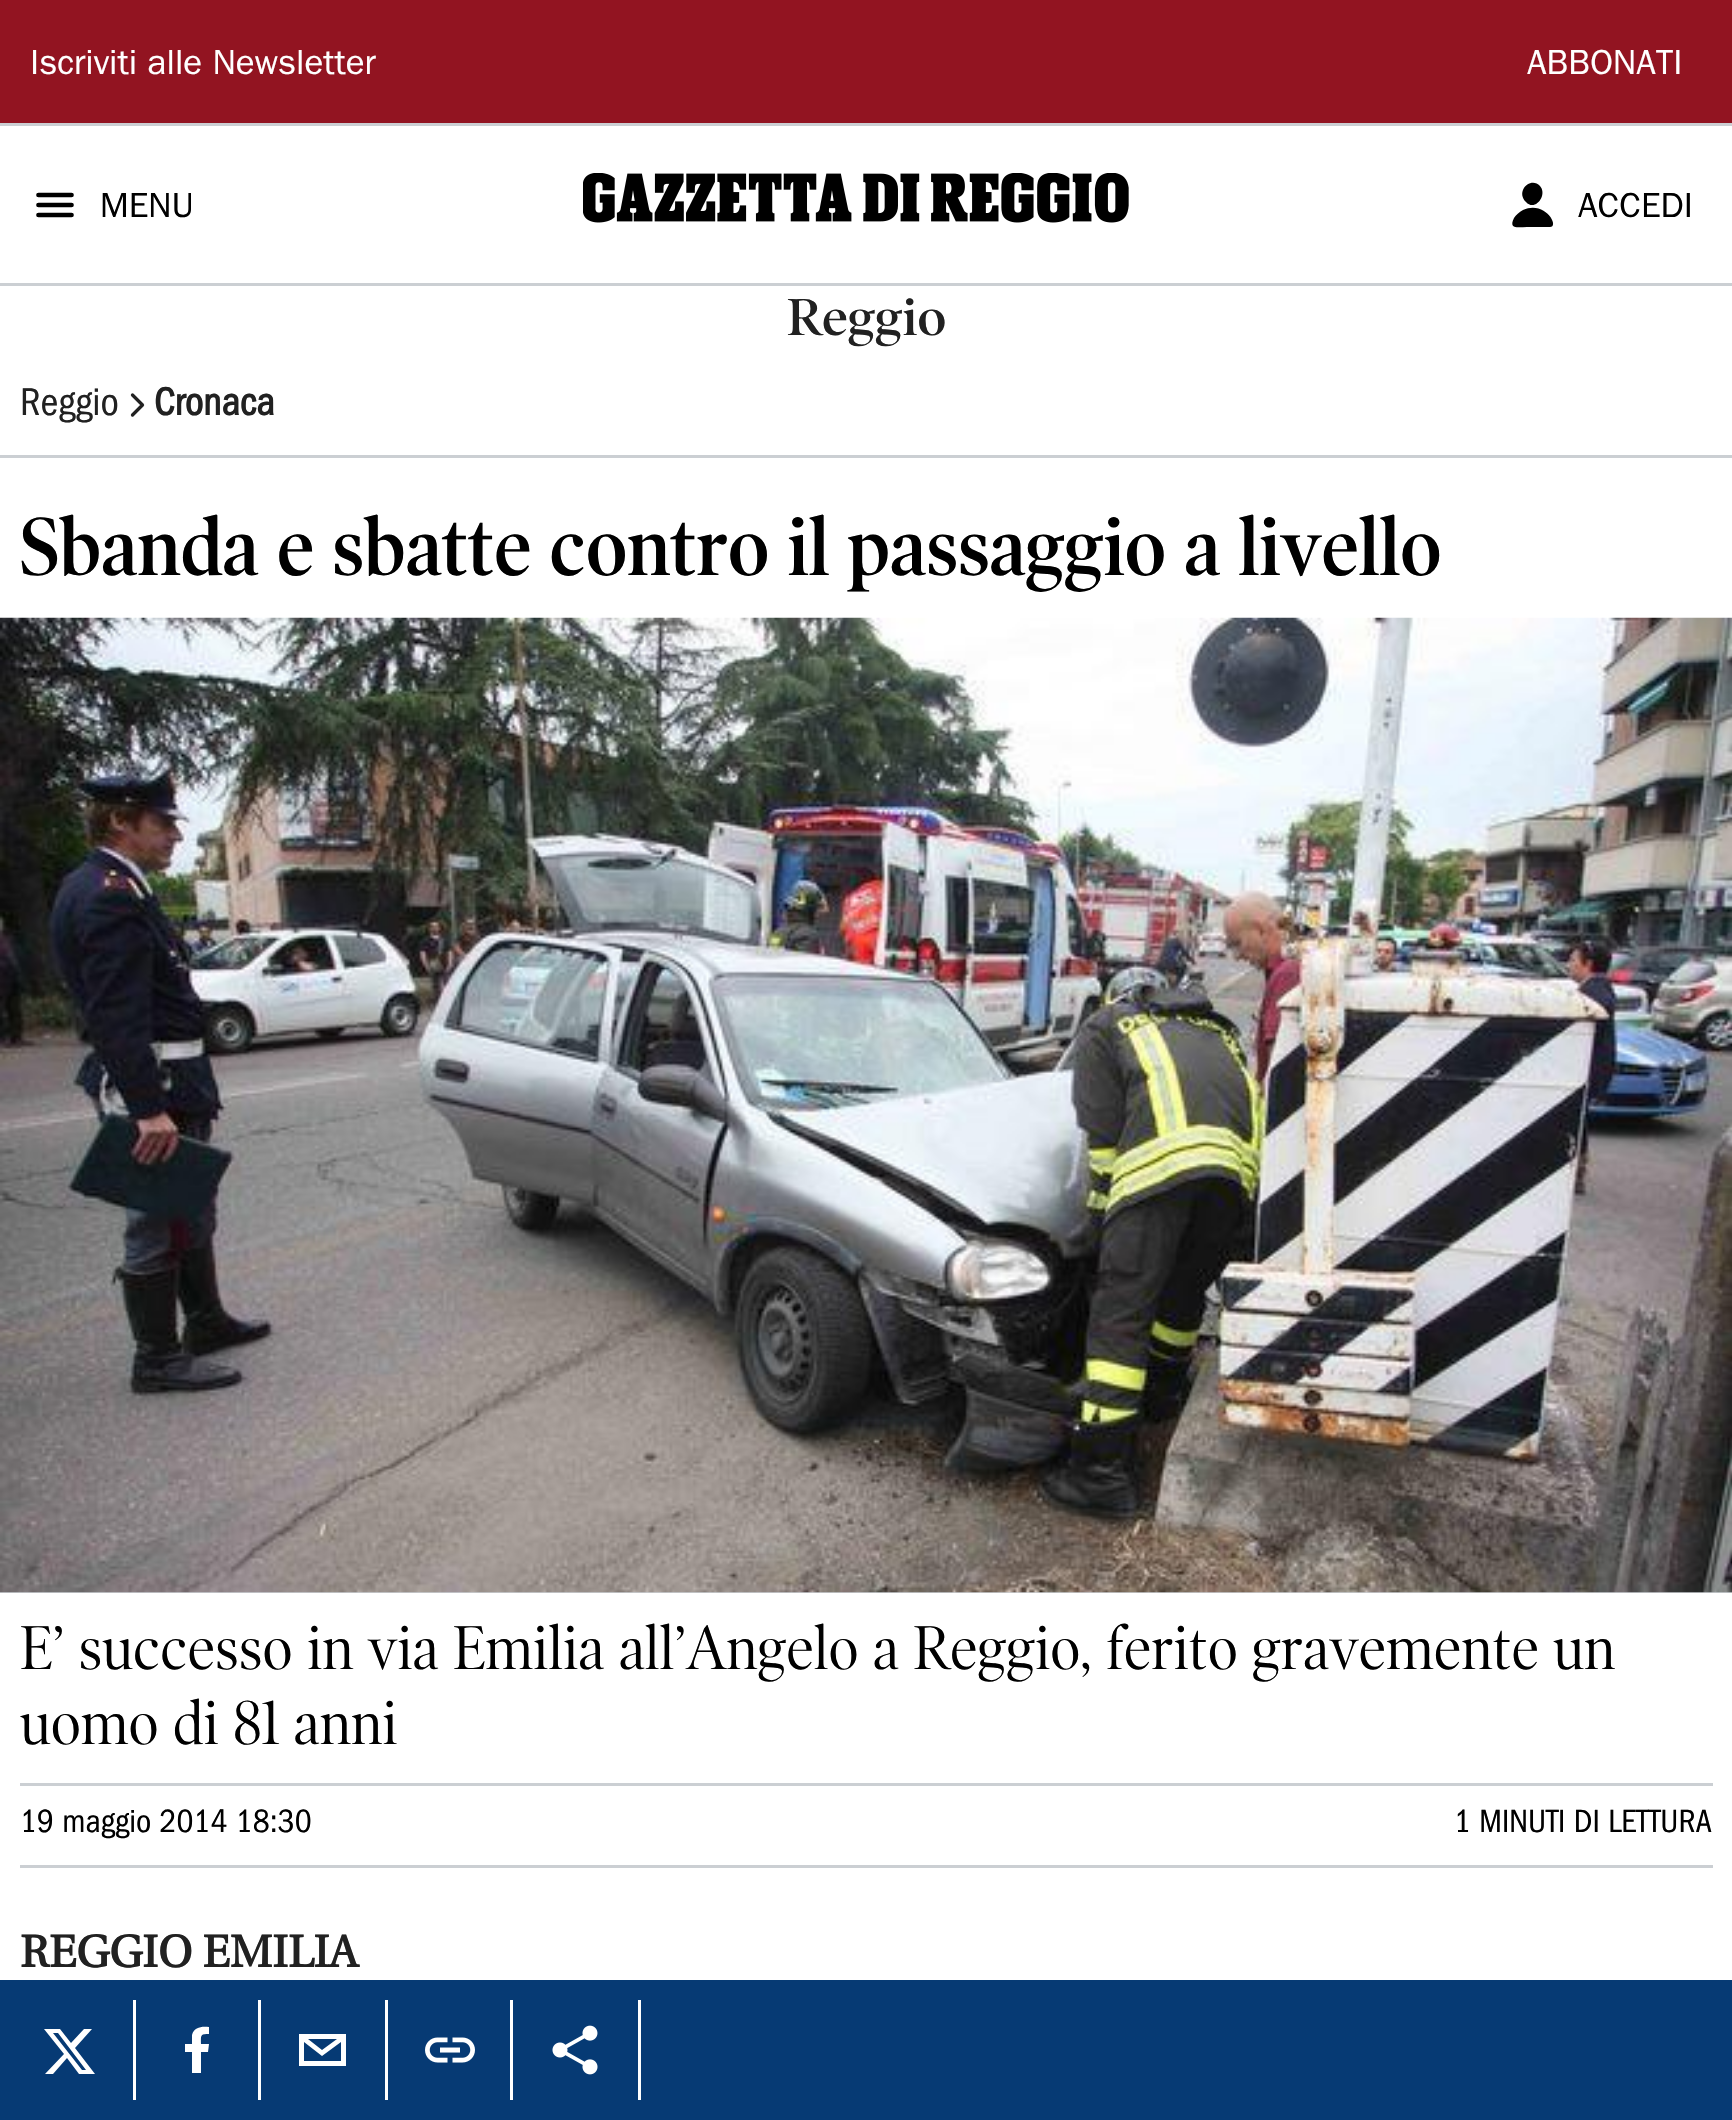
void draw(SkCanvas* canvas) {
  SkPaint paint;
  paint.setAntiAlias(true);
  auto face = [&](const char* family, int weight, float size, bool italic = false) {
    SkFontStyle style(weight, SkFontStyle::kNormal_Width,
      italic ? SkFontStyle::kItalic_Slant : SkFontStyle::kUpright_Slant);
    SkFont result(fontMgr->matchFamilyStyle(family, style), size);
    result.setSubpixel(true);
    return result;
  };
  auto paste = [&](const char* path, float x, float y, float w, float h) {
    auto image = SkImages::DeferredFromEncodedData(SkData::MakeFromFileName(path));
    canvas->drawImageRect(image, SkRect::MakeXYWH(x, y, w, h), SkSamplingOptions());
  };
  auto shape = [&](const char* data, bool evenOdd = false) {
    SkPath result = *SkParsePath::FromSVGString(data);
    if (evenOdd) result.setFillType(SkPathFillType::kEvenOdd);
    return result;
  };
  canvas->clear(0xffffffff);
  {
    const struct { float x, y, w, h; SkColor color; } items[] = {
      {0, 0, 1732, 123, 0xff921421},
      {0, 123, 1732, 3, 0xffcbcfd3},
      {0, 283, 1732, 3, 0xffcbcfd3},
    };
    for (auto [x, y, w, h, color] : items) {
      paint.setColor(color);
      canvas->drawRect(SkRect::MakeXYWH(x, y, w, h), paint);
    }
  }
  paint.setStroke(true);
  paint.setStrokeWidth(4.7f);
  paint.setStrokeCap(SkPaint::kRound_Cap);
  paint.setColor(0xff000000);
  canvas->drawPath(shape("M38.5 195H71.5M38.5 205H71.5M38.5 215H71.5"), paint);
  paste("img/1.png", 583, 173, 546, 50);
  paint.setStroke(false);
  canvas->drawPath(shape("M1540 186C1531 176 1515 191 1526 202C1535 212 1548 195 1540 186ZM1550 227H1527C1519 227 1508 230 1514 218C1516 215 1519 212 1523 210C1545 200 1560 227 1550 227Z"), paint);
  paint.setColor(0xffcbcfd3);
  canvas->drawRect(SkRect::MakeXYWH(0, 455, 1732, 3), paint);
  paint.setStroke(true);
  paint.setStrokeWidth(3.3f);
  paint.setStrokeJoin(SkPaint::kRound_Join);
  paint.setColor(0xff212121);
  canvas->drawPath(shape("M132.5 395L142.5 405L132.5 415"), paint);
  paint.setStroke(false);
  paint.setColor(0xffcbcfd3);
  canvas->drawRect(SkRect::MakeXYWH(0, 1592, 1732, 1), paint);
  paste("img/2.png", 0, 617, 1732, 976);
  {
    const struct { float x, y, w, h; SkColor color; } items[] = {
      {20, 1783, 1693, 3, 0xffcbcfd3},
      {20, 1865, 1693, 3, 0xffcbcfd3},
      {0, 1980, 1732, 140, 0xff063a74},
    };
    for (auto [x, y, w, h, color] : items) {
      paint.setColor(color);
      canvas->drawRect(SkRect::MakeXYWH(x, y, w, h), paint);
    }
  }
  paint.setColor(0xffffffff);
  canvas->drawPath(shape("M84 2029H92L75 2048L95 2074H79L67 2058L53 2074H45L64 2054L44 2029H60L71 2043ZM82 2070H86L58 2033H53Z"), paint);
  canvas->drawRect(SkRect::MakeXYWH(133, 2000, 3, 100), paint);
  canvas->drawPath(shape("M201 2073V2052H208L209 2044H201C201 2035 200 2034 209 2034V2027C202 2026 194 2027 192 2035V2044H185V2052H192V2073Z"), paint);
  canvas->drawRect(SkRect::MakeXYWH(258, 2000, 3, 100), paint);
  canvas->drawPath(shape("M299 2034V2066H346V2034ZM337 2039L322 2050L308 2039ZM304 2061V2042L322 2056L341 2042V2061Z"), paint);
  canvas->drawRect(SkRect::MakeXYWH(385, 2000, 3, 100), paint);
  paste("img/3.png", 425, 2037, 50, 26);
  canvas->drawRect(SkRect::MakeXYWH(510, 2000, 3, 100), paint);
  paste("img/4.png", 552, 2025, 46, 50);
  canvas->drawRect(SkRect::MakeXYWH(638, 2000, 3, 100), paint);
  auto f0 = face("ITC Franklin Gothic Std", 400, 35);
  canvas->drawString("Iscriviti alle Newsletter", 30, 74, f0, paint);
  canvas->drawString("ABBONATI", 1527, 74, f0, paint);
  paint.setColor(0xff000000);
  canvas->drawString("MENU", 100, 217, f0, paint);
  canvas->drawString("ACCEDI", 1578, 217, f0, paint);
  auto f1 = face("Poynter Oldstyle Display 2", 600, 52.5f);
  paint.setColor(0xff212121);
  canvas->drawString("Reggio", 787, 335, f1, paint);
  auto f2 = face("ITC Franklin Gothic", 400, 40);
  canvas->drawString("Reggio", 20, 415, f2, paint);
  auto f3 = face("ITC Franklin Gothic", 700, 40);
  canvas->drawString("Cronaca", 154, 415, f3, paint);
  auto f4 = face("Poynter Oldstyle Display", 600, 83.3f);
  paint.setColor(0xff000000);
  canvas->drawString("Sbanda e sbatte contro il passaggio a livello", 20, 575, f4, paint);
  auto f5 = face("Poynter Oldstyle Display", 400, 62.5f);
  canvas->drawString("E’ successo in via Emilia all’Angelo a Reggio, ferito gravemente un", 20, 1669, f5, paint);
  canvas->drawString("uomo di 81 anni", 20, 1744, f5, paint);
  auto f6 = face("ITC Franklin Gothic", 400, 33.25f);
  canvas->drawString("19 maggio 2014 18:30", 20, 1832, f6, paint);
  canvas->drawString("1 MINUTI DI LETTURA", 1454, 1832, f6, paint);
  auto f7 = face("Utopia", 700, 45);
  paint.setColor(0xff212121);
  canvas->drawString("REGGIO EMILIA", 20, 1967, f7, paint);
}
